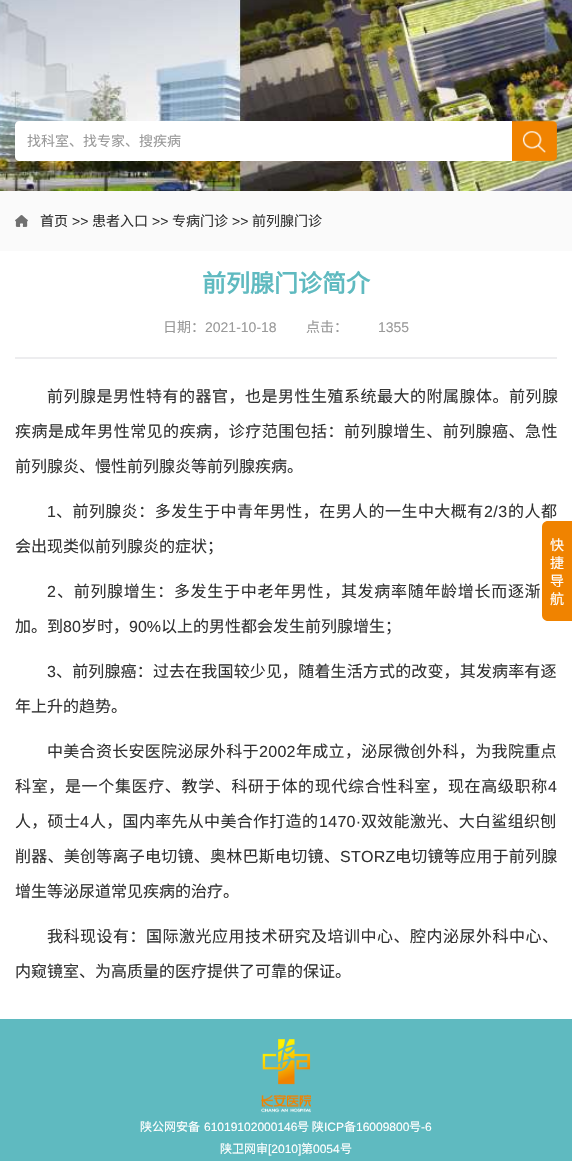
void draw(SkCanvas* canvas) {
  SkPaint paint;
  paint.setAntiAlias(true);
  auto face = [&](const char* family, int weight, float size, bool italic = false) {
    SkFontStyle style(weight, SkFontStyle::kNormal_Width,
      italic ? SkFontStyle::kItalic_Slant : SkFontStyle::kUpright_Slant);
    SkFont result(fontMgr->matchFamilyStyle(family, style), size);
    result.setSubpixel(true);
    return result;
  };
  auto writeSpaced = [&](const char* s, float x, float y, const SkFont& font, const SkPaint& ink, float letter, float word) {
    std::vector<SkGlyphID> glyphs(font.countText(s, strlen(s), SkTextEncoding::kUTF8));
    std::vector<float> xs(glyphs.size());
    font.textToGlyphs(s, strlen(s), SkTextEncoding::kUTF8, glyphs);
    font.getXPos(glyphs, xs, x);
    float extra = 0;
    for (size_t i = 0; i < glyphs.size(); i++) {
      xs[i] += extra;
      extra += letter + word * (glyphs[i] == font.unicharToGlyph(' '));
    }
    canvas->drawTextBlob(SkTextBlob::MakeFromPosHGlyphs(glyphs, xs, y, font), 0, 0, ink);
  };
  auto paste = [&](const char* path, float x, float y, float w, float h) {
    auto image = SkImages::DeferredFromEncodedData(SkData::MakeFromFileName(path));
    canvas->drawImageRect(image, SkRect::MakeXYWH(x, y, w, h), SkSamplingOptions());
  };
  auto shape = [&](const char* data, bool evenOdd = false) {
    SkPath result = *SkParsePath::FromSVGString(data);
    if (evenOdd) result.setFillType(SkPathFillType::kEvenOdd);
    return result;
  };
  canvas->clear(0xffffffff);
  paste("img/1.png", 0, 0, 572, 191);
  paint.setColor(0xffffffff);
  canvas->drawPath(shape("M19 121H512V161H19C17 161 15 159 15 157V125C15 123 17 121 19 121Z"), paint);
  paste("img/2.png", 512, 120, 45, 41);
  paint.setColor(0xfffafafa);
  canvas->drawRect(SkRect::MakeXYWH(0, 191, 572, 60), paint);
  paste("img/3.png", 15, 215, 13, 12);
  paint.setColor(0xffededef);
  canvas->drawRect(SkRect::MakeXYWH(15, 357, 542, 2), paint);
  paint.setColor(0xfff08300);
  canvas->drawPath(shape("M548 521H572V621H548C544.5 621 542 618.5 542 615V527C542 523.5 544.5 521 548 521Z"), paint);
  paint.setColor(0xff5fbac0);
  canvas->drawRect(SkRect::MakeXYWH(0, 1019, 572, 142), paint);
  paste("img/4.png", 261, 1039, 50, 74);
  auto f0 = face("Noto Sans CJK SC", 400, 14);
  paint.setColor(0xff999999);
  canvas->drawString("找科室、找专家、搜疾病", 27, 146, f0, paint);
  paint.setColor(0xff333333);
  canvas->drawString("首页", 40, 226, f0, paint);
  auto f1 = face("Liberation Sans", 400, 14);
  canvas->drawString(">>", 72, 226, f1, paint);
  canvas->drawString("患者入口", 92, 226, f0, paint);
  canvas->drawString(">>", 152, 226, f1, paint);
  canvas->drawString("专病门诊", 172, 226, f0, paint);
  canvas->drawString(">>", 232, 226, f1, paint);
  canvas->drawString("前列腺门诊", 252, 226, f0, paint);
  auto f2 = face("Noto Sans CJK SC", 700, 24);
  paint.setColor(0xff5fbac0);
  canvas->drawString("前列腺门诊简介", 202, 292, f2, paint);
  paint.setColor(0xff999999);
  canvas->drawString("日期：", 163, 332, f0, paint);
  canvas->drawString("2021-10-18", 205, 332, f1, paint);
  canvas->drawString("点击：", 306, 332, f0, paint);
  canvas->drawString("1355", 378, 332, f1, paint);
  auto f3 = face("Noto Sans CJK SC", 400, 16);
  paint.setColor(0xff333333);
  writeSpaced("前列腺是男性特有的器官，也是男性生殖系统最大的附属腺体。前列腺", 47, 402, f3, paint, 0.5f, 0);
  writeSpaced("疾病是成年男性常见的疾病，诊疗范围包括：前列腺增生、前列腺癌、急性", 15, 437, f3, paint, 0.45f, 0);
  canvas->drawString("前列腺炎、慢性前列腺炎等前列腺疾病。", 15, 472, f3, paint);
  auto f4 = face("Liberation Sans", 400, 16);
  writeSpaced("1", 47, 517, f4, paint, 0.45f, 0);
  writeSpaced("、前列腺炎：多发生于中青年男性，在男人的一生中大概有", 56, 517, f3, paint, 0.45f, 0);
  writeSpaced("2/3", 484, 517, f4, paint, 0.45f, 0);
  writeSpaced("的人都", 508, 517, f3, paint, 0.45f, 0);
  canvas->drawString("会出现类似前列腺炎的症状；", 15, 552, f3, paint);
  writeSpaced("2", 47, 597, f4, paint, 0.7f, 0);
  writeSpaced("、前列腺增生：多发生于中老年男性，其发病率随年龄增长而逐渐", 57, 597, f3, paint, 0.7f, 0);
  canvas->drawString("加。到", 15, 632, f3, paint);
  canvas->drawString("80", 63, 632, f4, paint);
  canvas->drawString("岁时，", 81, 632, f3, paint);
  canvas->drawString("90%", 129, 632, f4, paint);
  canvas->drawString("以上的男性都会发生前列腺增生；", 161, 632, f3, paint);
  writeSpaced("3", 47, 677, f4, paint, 0.15f, 0);
  writeSpaced("、前列腺癌：过去在我国较少见，随着生活方式的改变，其发病率有逐", 56, 677, f3, paint, 0.15f, 0);
  canvas->drawString("年上升的趋势。", 15, 712, f3, paint);
  writeSpaced("中美合资长安医院泌尿外科于", 47, 757, f3, paint, 0.3f, 0);
  writeSpaced("2002", 259, 757, f4, paint, 0.3f, 0);
  writeSpaced("年成立，泌尿微创外科，为我院重点", 296, 757, f3, paint, 0.3f, 0);
  writeSpaced("科室，是一个集医疗、教学、科研于体的现代综合性科室，现在高级职称", 15, 792, f3, paint, 0.65f, 0);
  writeSpaced("4", 548, 792, f4, paint, 0.65f, 0);
  writeSpaced("人，硕士", 15, 827, f3, paint, 0.3f, 0);
  writeSpaced("4", 80, 827, f4, paint, 0.3f, 0);
  writeSpaced("人，国内率先从中美合作打造的", 90, 827, f3, paint, 0.3f, 0);
  writeSpaced("1470·", 319, 827, f4, paint, 0.3f, 0);
  writeSpaced("双效能激光、大白鲨组织刨", 361, 827, f3, paint, 0.3f, 0);
  writeSpaced("削器、美创等离子电切镜、奥林巴斯电切镜、", 15, 862, f3, paint, 0.25f, 0);
  writeSpaced("STORZ", 340, 862, f4, paint, 0.25f, 0);
  writeSpaced("电切镜等应用于前列腺", 395, 862, f3, paint, 0.25f, 0);
  canvas->drawString("增生等泌尿道常见疾病的治疗。", 15, 897, f3, paint);
  writeSpaced("我科现设有：国际激光应用技术研究及培训中心、腔内泌尿外科中心、", 47, 942, f3, paint, 0.5f, 0);
  canvas->drawString("内窥镜室、为高质量的医疗提供了可靠的保证。", 15, 977, f3, paint);
  paint.setColor(0xffffffff);
  {
    const struct { const char* s; float x, y; } items[] = {
      {"快", 550, 550},
      {"捷", 550, 568},
      {"导", 550, 586},
      {"航", 550, 604},
    };
    for (auto [s, x, y] : items) {
      canvas->drawString(s, x, y, f0, paint);
    }
  }
  auto f5 = face("Noto Sans CJK SC", 400, 12);
  canvas->drawString("陕公网安备", 140, 1131, f5, paint);
  auto f6 = face("Liberation Sans", 400, 12);
  canvas->drawString("61019102000146", 204, 1131, f6, paint);
  canvas->drawString("号 陕", 297, 1131, f5, paint);
  canvas->drawString("ICP", 324, 1131, f6, paint);
  canvas->drawString("备", 344, 1131, f5, paint);
  canvas->drawString("16009800", 356, 1131, f6, paint);
  canvas->drawString("号", 409, 1131, f5, paint);
  canvas->drawString("-6", 421, 1131, f6, paint);
  canvas->drawString("陕卫网审", 220, 1153, f5, paint);
  canvas->drawString("[2010]", 268, 1153, f6, paint);
  canvas->drawString("第", 301, 1153, f5, paint);
  canvas->drawString("0054", 313, 1153, f6, paint);
  canvas->drawString("号", 340, 1153, f5, paint);
}
